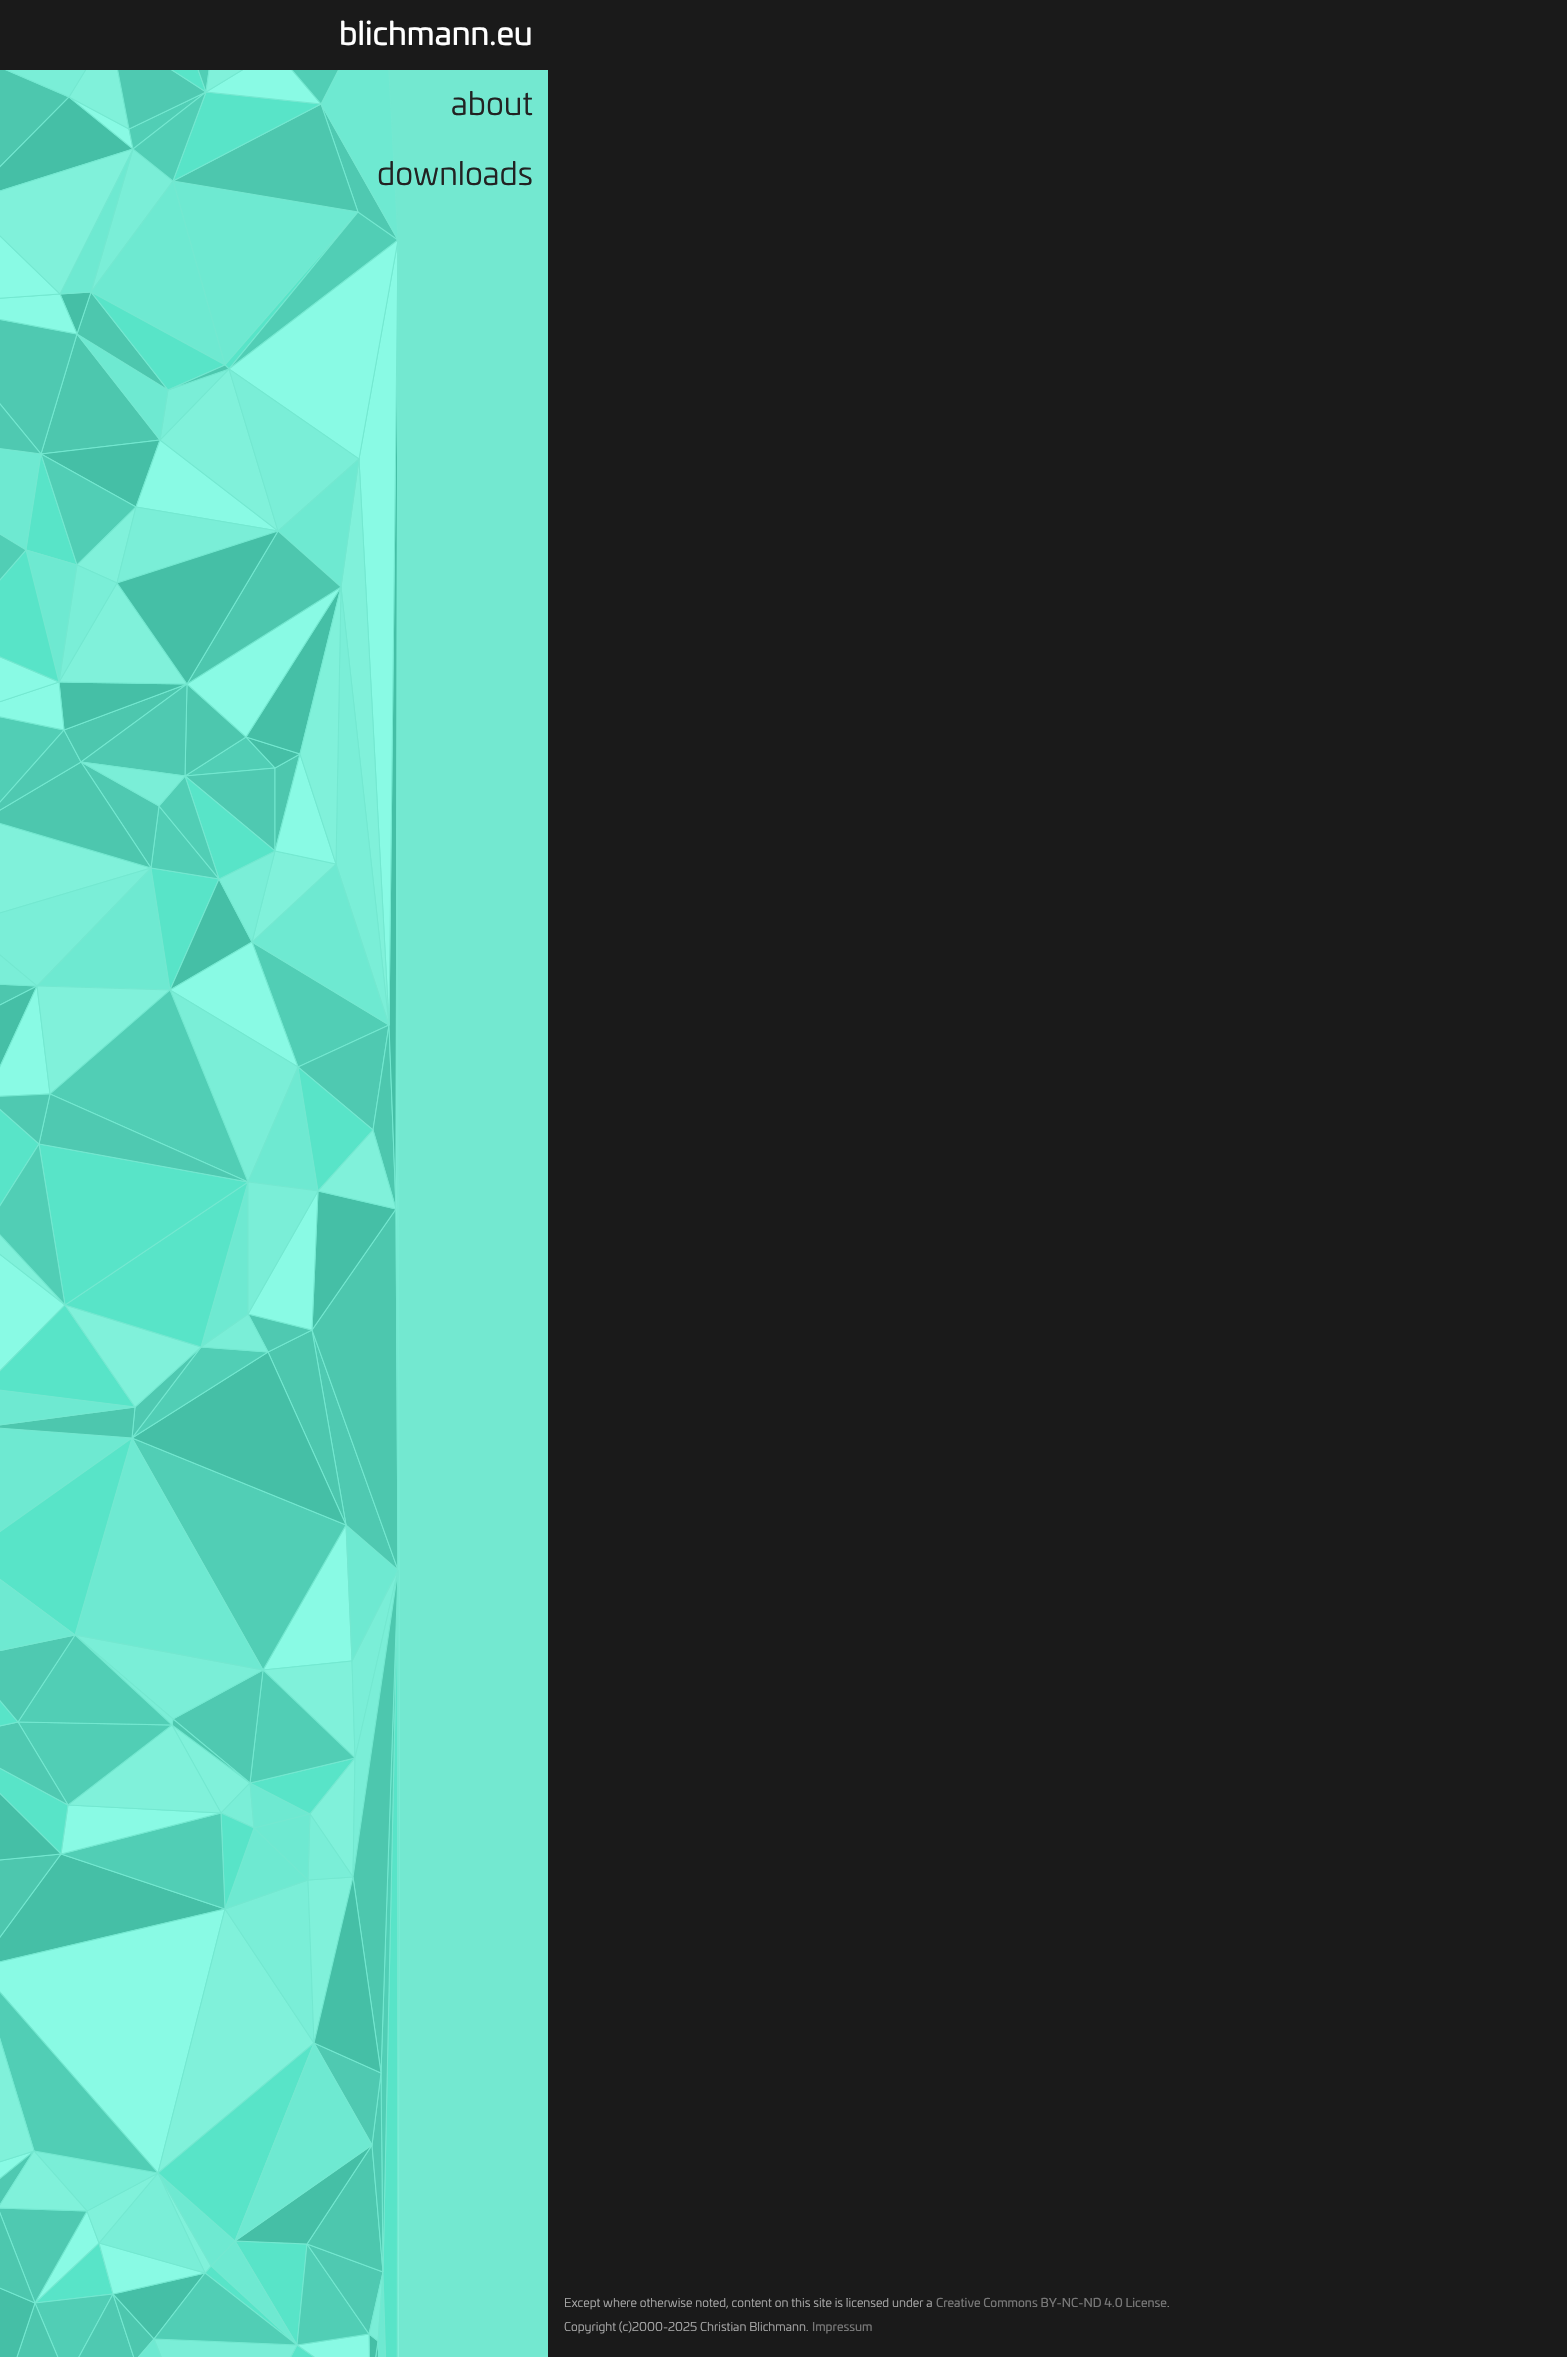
void draw(SkCanvas* canvas) {
  SkPaint paint;
  paint.setAntiAlias(true);
  auto face = [&](const char* family, int weight, float size, bool italic = false) {
    SkFontStyle style(weight, SkFontStyle::kNormal_Width,
      italic ? SkFontStyle::kItalic_Slant : SkFontStyle::kUpright_Slant);
    SkFont result(fontMgr->matchFamilyStyle(family, style), size);
    result.setSubpixel(true);
    return result;
  };
  auto paste = [&](const char* path, float x, float y, float w, float h) {
    auto image = SkImages::DeferredFromEncodedData(SkData::MakeFromFileName(path));
    canvas->drawImageRect(image, SkRect::MakeXYWH(x, y, w, h), SkSamplingOptions());
  };
  canvas->clear(0xff1a1a1a);
  paint.setColor(0xff73e8d0);
  canvas->drawRect(SkRect::MakeXYWH(0, 70, 548, 2217), paint);
  canvas->drawRect(SkRect::MakeXYWH(1, 2287, 547, 70), paint);
  paste("img/1.png", 0, 70, 400, 2287);
  auto f0 = face("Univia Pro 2", 400, 32);
  paint.setColor(0xffffffff);
  canvas->drawString("blichmann.eu", 339, 45, f0, paint);
  auto f1 = face("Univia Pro", 400, 32);
  paint.setColor(0xff222222);
  canvas->drawString("about", 451, 115, f1, paint);
  canvas->drawString("downloads", 377, 185, f1, paint);
  auto f2 = face("Univia Pro", 400, 12);
  paint.setColor(0xffaaaaaa);
  canvas->drawString("Except where otherwise noted, content on this site is licensed under a", 564, 2307, f2, paint);
  auto f3 = face("Univia Pro 2", 400, 12);
  paint.setColor(0xff777777);
  canvas->drawString("Creative Commons BY-NC-ND 4.0 License", 936, 2307, f3, paint);
  paint.setColor(0xffaaaaaa);
  canvas->drawString(".", 1167, 2307, f2, paint);
  canvas->drawString("Copyright (c)2000-2025 Christian Blichmann.", 564, 2331, f2, paint);
  paint.setColor(0xff777777);
  canvas->drawString("Impressum", 812, 2331, f3, paint);
}
